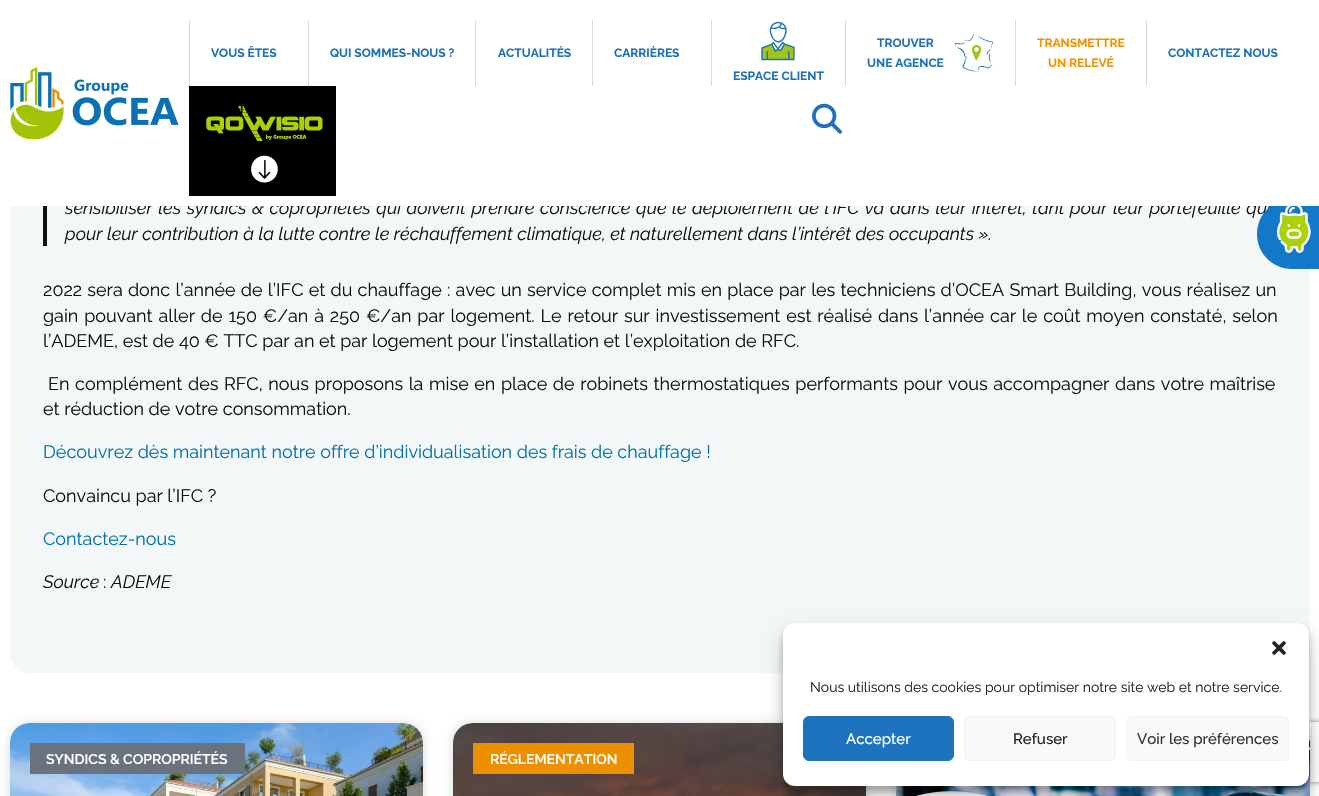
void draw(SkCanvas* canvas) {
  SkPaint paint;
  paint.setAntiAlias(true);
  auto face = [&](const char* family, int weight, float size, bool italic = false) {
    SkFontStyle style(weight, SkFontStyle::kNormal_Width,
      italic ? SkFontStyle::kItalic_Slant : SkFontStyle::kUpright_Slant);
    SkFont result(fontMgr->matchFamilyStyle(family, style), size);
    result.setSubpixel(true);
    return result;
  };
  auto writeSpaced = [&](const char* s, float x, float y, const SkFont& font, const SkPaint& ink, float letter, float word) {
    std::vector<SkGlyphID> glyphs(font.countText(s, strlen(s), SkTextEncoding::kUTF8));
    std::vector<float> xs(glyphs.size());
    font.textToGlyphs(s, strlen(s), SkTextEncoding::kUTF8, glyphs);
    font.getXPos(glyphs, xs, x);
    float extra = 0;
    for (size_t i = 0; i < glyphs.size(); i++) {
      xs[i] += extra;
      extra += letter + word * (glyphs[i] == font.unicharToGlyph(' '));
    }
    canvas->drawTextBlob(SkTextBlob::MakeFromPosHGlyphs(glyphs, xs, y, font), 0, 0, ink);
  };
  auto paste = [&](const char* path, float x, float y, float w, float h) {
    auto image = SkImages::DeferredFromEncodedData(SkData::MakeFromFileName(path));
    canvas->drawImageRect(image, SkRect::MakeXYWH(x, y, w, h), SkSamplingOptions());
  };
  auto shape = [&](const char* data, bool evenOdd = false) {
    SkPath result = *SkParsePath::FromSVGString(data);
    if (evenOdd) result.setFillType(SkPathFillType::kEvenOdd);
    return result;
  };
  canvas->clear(0xffffffff);
  paint.setColor(0xfff4f7f8);
  canvas->drawRoundRect(SkRect::MakeXYWH(10, -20, 1300, 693), 20, 20, paint);
  paint.setColor(0xff111111);
  canvas->drawRect(SkRect::MakeXYWH(43, 206, 4, 40), paint);
  paint.setColor(0x26000000);
  paint.setMaskFilter(SkMaskFilter::MakeBlur(kNormal_SkBlurStyle, 5));
  canvas->drawRoundRect(SkRect::MakeXYWH(10, 723, 413, 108), 20, 20, paint);
  paint.setMaskFilter(nullptr);
  paint.setColor(0xffffffff);
  canvas->drawRoundRect(SkRect::MakeXYWH(10, 723, 413, 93), 20, 20, paint);
  paste("img/7.png", 10, 723, 413, 73);
  paint.setColor(0xff69727d);
  canvas->drawRect(SkRect::MakeXYWH(30, 743, 215, 31), paint);
  paint.setColor(0x26000000);
  paint.setMaskFilter(SkMaskFilter::MakeBlur(kNormal_SkBlurStyle, 5));
  canvas->drawRoundRect(SkRect::MakeXYWH(453, 723, 413, 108), 20, 20, paint);
  paint.setMaskFilter(nullptr);
  paint.setColor(0xffffffff);
  canvas->drawRoundRect(SkRect::MakeXYWH(453, 723, 413, 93), 20, 20, paint);
  paste("img/8.png", 453, 723, 413, 73);
  paint.setColor(0xffec9001);
  canvas->drawRect(SkRect::MakeXYWH(473, 743, 161, 31), paint);
  paint.setColor(0x26000000);
  paint.setMaskFilter(SkMaskFilter::MakeBlur(kNormal_SkBlurStyle, 5));
  canvas->drawRoundRect(SkRect::MakeXYWH(896, 723, 414, 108), 20, 20, paint);
  paint.setMaskFilter(nullptr);
  paste("img/9.png", 896, 736, 414, 60);
  paint.setColor(0x3b000000);
  paint.setMaskFilter(SkMaskFilter::MakeBlur(kNormal_SkBlurStyle, 3));
  canvas->drawRoundRect(SkRect::MakeXYWH(783, 629, 526, 163), 12, 12, paint);
  paint.setMaskFilter(nullptr);
  paint.setColor(0x30000000);
  paint.setMaskFilter(SkMaskFilter::MakeBlur(kNormal_SkBlurStyle, 10));
  canvas->drawRoundRect(SkRect::MakeXYWH(783, 633, 526, 163), 12, 12, paint);
  paint.setMaskFilter(nullptr);
  canvas->save();
  canvas->clipPath(shape("M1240 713H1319V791H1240ZM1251 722H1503C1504 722 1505 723 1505 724V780C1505 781 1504 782 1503 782H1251C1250 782 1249 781 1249 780V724C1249 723 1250 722 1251 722Z", true), true);
  paint.setColor(0xff808080);
  paint.setMaskFilter(SkMaskFilter::MakeBlur(kNormal_SkBlurStyle, 2.5f));
  canvas->drawRoundRect(SkRect::MakeXYWH(1249, 722, 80, 60), 2, 2, paint);
  paint.setMaskFilter(nullptr);
  canvas->restore();
  paint.setColor(0xffffffff);
  canvas->drawRoundRect(SkRect::MakeXYWH(783, 623, 526, 163), 12, 12, paint);
  paste("img/10.png", 1272, 641, 14, 14);
  paint.setColor(0xff1e73be);
  canvas->drawRoundRect(SkRect::MakeXYWH(803.5f, 716.5f, 150, 44), 5.5f, 5.5f, paint);
  paint.setStroke(true);
  paint.setStrokeWidth(1);
  canvas->drawRoundRect(SkRect::MakeXYWH(803.5f, 716.5f, 150, 44), 5.5f, 5.5f, paint);
  paint.setStroke(false);
  paint.setColor(0xfff9f9f9);
  canvas->drawRoundRect(SkRect::MakeXYWH(964.5f, 716.5f, 151, 44), 5.5f, 5.5f, paint);
  paint.setStroke(true);
  paint.setColor(0xfff2f2f2);
  canvas->drawRoundRect(SkRect::MakeXYWH(964.5f, 716.5f, 151, 44), 5.5f, 5.5f, paint);
  paint.setStroke(false);
  paint.setColor(0xfff9f9f9);
  canvas->drawRoundRect(SkRect::MakeXYWH(1126.5f, 716.5f, 162, 44), 5.5f, 5.5f, paint);
  paint.setStroke(true);
  paint.setColor(0xfff2f2f2);
  canvas->drawRoundRect(SkRect::MakeXYWH(1126.5f, 716.5f, 162, 44), 5.5f, 5.5f, paint);
  auto f0 = face("Raleway", 400, 18, true);
  paint.setStroke(false);
  paint.setColor(0xff111111);
  writeSpaced("sensibiliser les syndics & copropriétés qui doivent prendre conscience que le déploiement de l’IFC va dans leur intérêt, tant pour leur portefeuille que", 65, 214, f0, paint, 0, 1.1f);
  paint.setColor(0xff1278c7);
  canvas->drawPath(shape("M1292 199H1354V269H1292C1272.5 269 1257 253.5 1257 234C1257 214.5 1272.5 199 1292 199Z"), paint);
  paint.setColor(0xffffffff);
  canvas->drawRect(SkRect::MakeXYWH(10, 0, 1309, 206), paint);
  paste("img/5.png", 812, 103, 30, 31);
  paint.setColor(0xff000000);
  canvas->drawRect(SkRect::MakeXYWH(189, 86, 147, 110), paint);
  paste("img/4.png", 206, 106, 117, 77);
  auto f1 = face("Raleway", 700, 12);
  paint.setColor(0xff0f1200);
  canvas->drawString("I", 240, 113, f1, paint);
  paint.setColor(0xff1d71b8);
  canvas->drawString("CONTACTEZ NOUS", 1168, 57, f1, paint);
  paint.setColor(0xfff39200);
  canvas->drawString("UN RELEVÉ", 1048, 67, f1, paint);
  canvas->drawString("TRANSMETTRE", 1037, 47, f1, paint);
  paint.setColor(0xffdadada);
  canvas->drawRect(SkRect::MakeXYWH(1146, 20, 1, 66), paint);
  paste("img/2.png", 954, 34, 39, 38);
  paint.setColor(0xff1d71b8);
  canvas->drawString("UNE AGENCE", 867, 67, f1, paint);
  canvas->drawString("TROUVER", 877, 47, f1, paint);
  paint.setColor(0xffdadada);
  canvas->drawRect(SkRect::MakeXYWH(1015, 20, 1, 66), paint);
  paste("img/3.png", 761, 21, 34, 40);
  paint.setColor(0xff1d71b8);
  canvas->drawString("ESPACE CLIENT", 733, 80, f1, paint);
  paint.setColor(0xffdadada);
  canvas->drawRect(SkRect::MakeXYWH(845, 20, 1, 66), paint);
  paint.setColor(0xff1d71b8);
  canvas->drawString("CARRIÈRES", 614, 57, f1, paint);
  paint.setColor(0xffdadada);
  canvas->drawRect(SkRect::MakeXYWH(711, 20, 1, 66), paint);
  paint.setColor(0xff1d71b8);
  canvas->drawString("ACTUALITÉS", 498, 57, f1, paint);
  paint.setColor(0xffdadada);
  canvas->drawRect(SkRect::MakeXYWH(592, 20, 1, 66), paint);
  paint.setColor(0xff1d71b8);
  canvas->drawString("QUI SOMMES-NOUS ?", 330, 57, f1, paint);
  paint.setColor(0xffdadada);
  canvas->drawRect(SkRect::MakeXYWH(475, 20, 1, 66), paint);
  paint.setColor(0xff1d71b8);
  canvas->drawString("VOUS ÊTES", 211, 57, f1, paint);
  paint.setColor(0xffdadada);
  canvas->drawRect(SkRect::MakeXYWH(189, 20, 1, 66), paint);
  canvas->drawRect(SkRect::MakeXYWH(308, 20, 1, 66), paint);
  paste("img/1.png", 10, 67, 169, 72);
  paste("img/6.png", 1277, 206, 34, 47);
  paint.setColor(0xff111111);
  canvas->drawString("pour leur contribution à la lutte contre le réchauffement climatique, et naturellement dans l’intérêt des occupants ».", 65, 240, f0, paint);
  auto f2 = face("Raleway", 400, 18);
  writeSpaced("2022 sera donc l’année de l’IFC et du chauffage : avec un service complet mis en place par les techniciens d’OCEA Smart Building, vous réalisez un", 43, 296, f2, paint, 0, 0.6f);
  writeSpaced("gain pouvant aller de 150 €/an à 250 €/an par logement. Le retour sur investissement est réalisé dans l’année car le coût moyen constaté, selon", 43, 322, f2, paint, 0, 1.25f);
  canvas->drawString("l’ADEME, est de 40 € TTC par an et par logement pour l’installation et l’exploitation de RFC.", 43, 347, f2, paint);
  writeSpaced("En complément des RFC, nous proposons la mise en place de robinets thermostatiques performants pour vous accompagner dans votre maîtrise", 48, 390, f2, paint, 0, 1);
  canvas->drawString("et réduction de votre consommation.", 43, 415, f2, paint);
  paint.setColor(0xff0073aa);
  canvas->drawString("Découvrez dès maintenant notre offre d’individualisation des frais de chauffage !", 43, 458, f2, paint);
  paint.setColor(0xff111111);
  canvas->drawString("Convaincu par l’IFC ?", 43, 502, f2, paint);
  paint.setColor(0xff0073aa);
  canvas->drawString("Contactez-nous", 43, 545, f2, paint);
  paint.setColor(0xff111111);
  canvas->drawString("Source", 43, 588, f0, paint);
  canvas->drawString(":", 103, 588, f2, paint);
  canvas->drawString("ADEME", 111, 588, f0, paint);
  auto f3 = face("Raleway", 600, 14);
  paint.setColor(0xffffffff);
  canvas->drawString("SYNDICS & COPROPRIÉTÉS", 46, 764, f3, paint);
  canvas->drawString("RÉGLEMENTATION", 490, 764, f3, paint);
  auto f4 = face("Raleway", 400, 14);
  paint.setColor(0xff222222);
  canvas->drawString("Nous utilisons des cookies pour optimiser notre site web et notre service.", 810, 692, f4, paint);
  auto f5 = face("Raleway", 500, 15);
  paint.setColor(0xffffffff);
  canvas->drawString("Accepter", 846, 744, f5, paint);
  paint.setColor(0xff222222);
  canvas->drawString("Refuser", 1013, 744, f5, paint);
  paint.setColor(0xff333333);
  canvas->drawString("Voir les préférences", 1137, 744, f5, paint);
}
